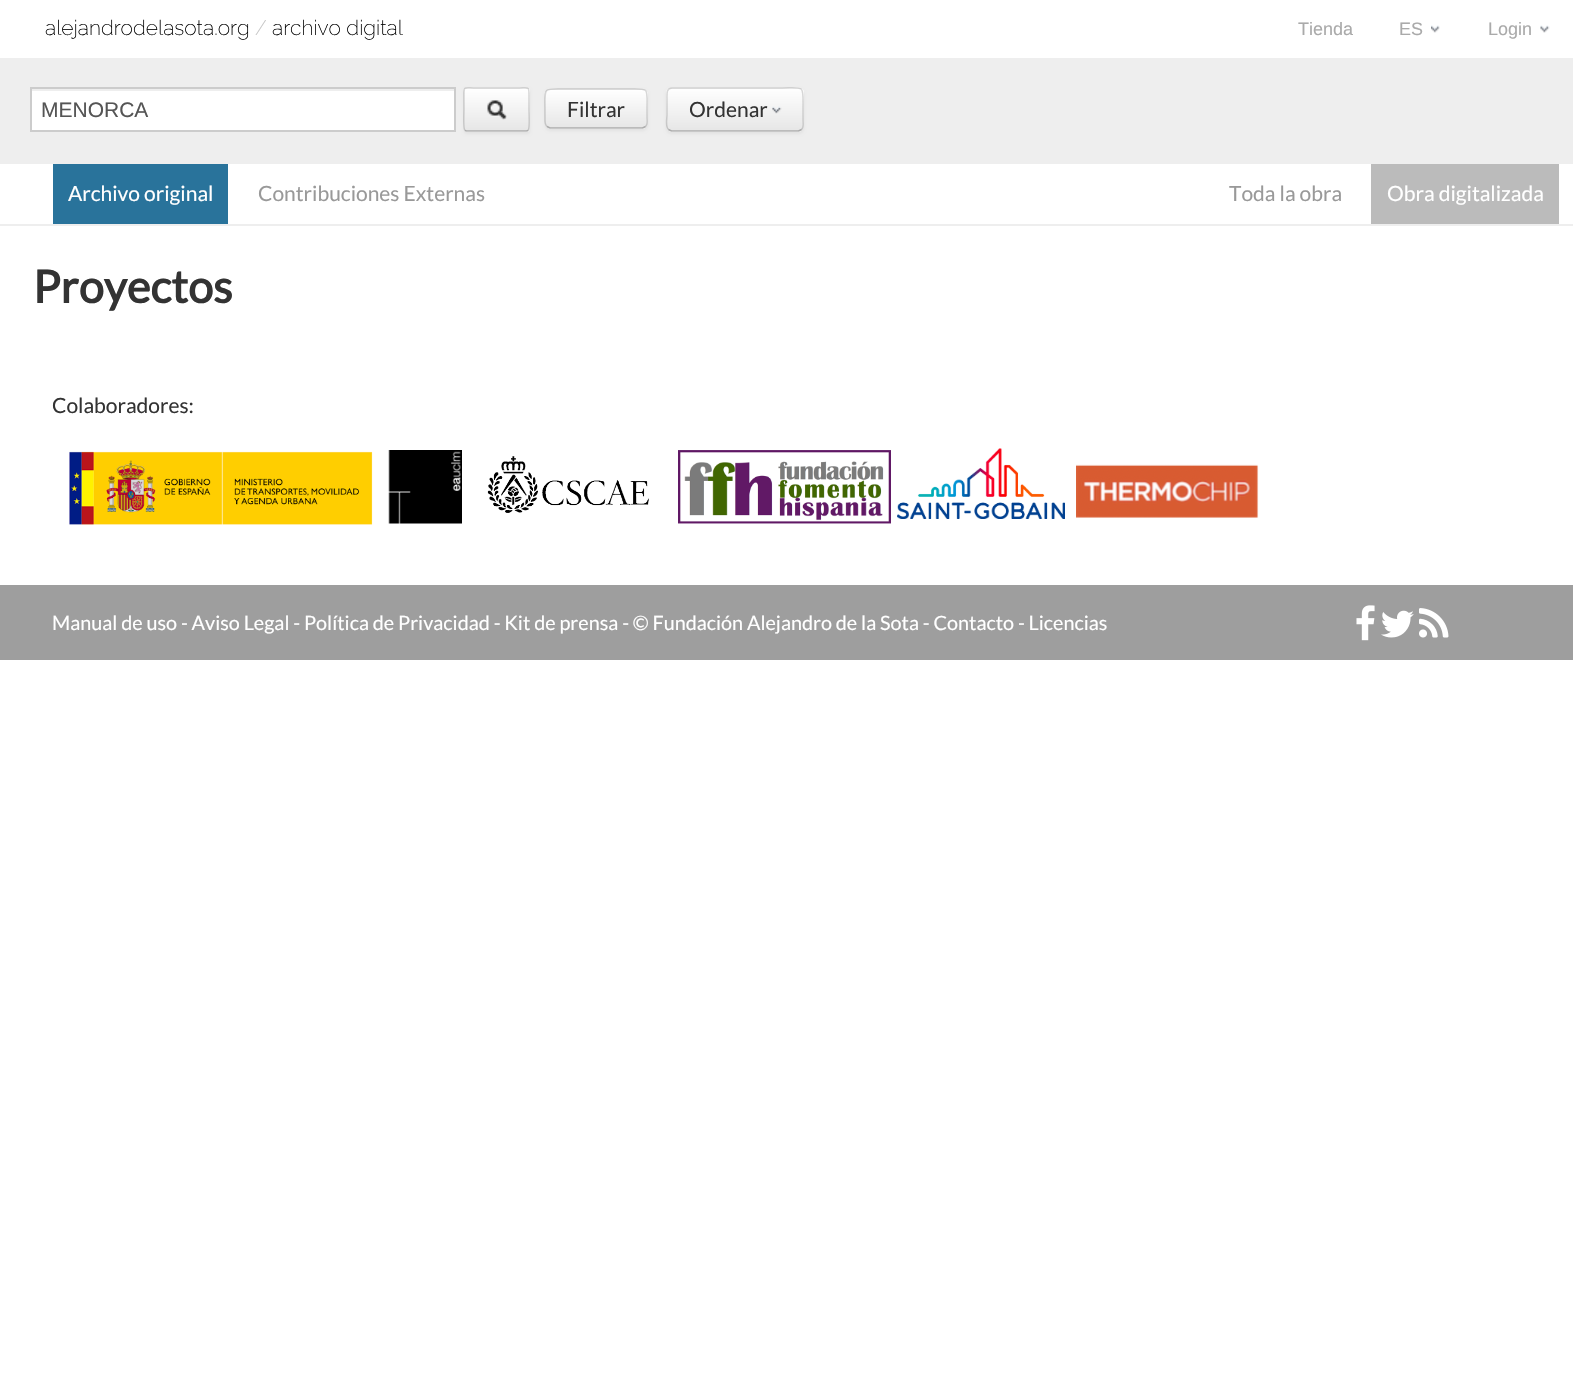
void draw(SkCanvas* canvas) {
  SkPaint paint;
  paint.setAntiAlias(true);
  auto face = [&](const char* family, int weight, float size, bool italic = false) {
    SkFontStyle style(weight, SkFontStyle::kNormal_Width,
      italic ? SkFontStyle::kItalic_Slant : SkFontStyle::kUpright_Slant);
    SkFont result(fontMgr->matchFamilyStyle(family, style), size);
    result.setSubpixel(true);
    return result;
  };
  auto paste = [&](const char* path, float x, float y, float w, float h) {
    auto image = SkImages::DeferredFromEncodedData(SkData::MakeFromFileName(path));
    canvas->drawImageRect(image, SkRect::MakeXYWH(x, y, w, h), SkSamplingOptions());
  };
  auto shape = [&](const char* data, bool evenOdd = false) {
    SkPath result = *SkParsePath::FromSVGString(data);
    if (evenOdd) result.setFillType(SkPathFillType::kEvenOdd);
    return result;
  };
  canvas->clear(0xffffffff);
  paste("img/1.png", 1431, 25, 9, 8);
  paste("img/2.png", 1540, 25, 10, 8);
  paint.setColor(0xffeeeeee);
  canvas->drawRect(SkRect::MakeXYWH(0, 58, 1573, 106), paint);
  paint.setColor(0xffffffff);
  canvas->drawRect(SkRect::MakeXYWH(32, 91, 422, 39), paint);
  paint.setStroke(true);
  paint.setStrokeWidth(2);
  paint.setColor(0xffcccccc);
  canvas->drawRect(SkRect::MakeXYWH(31, 88, 424, 43), paint);
  paint.setStroke(false);
  paint.setColor(0x0d000000);
  paint.setMaskFilter(SkMaskFilter::MakeBlur(kNormal_SkBlurStyle, 1.5f));
  canvas->drawRoundRect(SkRect::MakeXYWH(464, 89, 66, 45), 3, 3, paint);
  paint.setMaskFilter(nullptr);
  paint.setColor(0xfff5f5f5);
  canvas->drawRoundRect(SkRect::MakeXYWH(464, 87, 66, 45), 3, 3, paint);
  canvas->save();
  canvas->clipPath(shape("M467 87H527C528.5 87 530 88.5 530 90V129C530 130.5 528.5 132 527 132H467C465.5 132 464 130.5 464 129V90C464 88.5 465.5 87 467 87Z"), true);
  {
    const SkColor colors[] = {0xffffffff, 0xffe6e6e6};
    const float stops[] = {0, 1};
    const SkPoint ends[] = {{497, 89}, {497, 131}};
    paint.setShader(SkGradientShader::MakeLinear(ends, colors, stops, 2, SkTileMode::kClamp));
    paint.setAlpha(255);
  }
  canvas->drawRect(SkRect::MakeXYWH(464, 89, 66, 42), paint);
  canvas->restore();
  paint.setStroke(true);
  paint.setStrokeWidth(1.5f);
  paint.setShader(nullptr);
  paint.setColor(0x40000000);
  canvas->drawPath(shape("M528 130.5L526.5 131H466.5L465 130.5"), paint);
  paint.setColor(0x26000000);
  canvas->drawPath(shape("M465 130.5C463 129 464 112.5 464 109.5V96.5C464 85 463.5 88 476.5 88H516.5C529.5 88 529 85 529 96.5V109.5C529 112.5 530 129 528 130.5"), paint);
  paste("img/3.png", 487, 100, 20, 20);
  paint.setStroke(false);
  paint.setColor(0x0d000000);
  paint.setMaskFilter(SkMaskFilter::MakeBlur(kNormal_SkBlurStyle, 1.5f));
  canvas->drawRoundRect(SkRect::MakeXYWH(545, 90, 103, 41), 6, 6, paint);
  paint.setMaskFilter(nullptr);
  paint.setColor(0xfff5f5f5);
  canvas->drawRoundRect(SkRect::MakeXYWH(545, 89, 103, 40), 6, 6, paint);
  canvas->save();
  canvas->clipPath(shape("M551 89H642C645.5 89 648 91.5 648 95V123C648 126.5 645.5 129 642 129H551C547.5 129 545 126.5 545 123V95C545 91.5 547.5 89 551 89Z"), true);
  {
    const SkColor colors[] = {0xffffffff, 0xffe6e6e6};
    const float stops[] = {0, 1};
    const SkPoint ends[] = {{596, 90}, {596, 128}};
    paint.setShader(SkGradientShader::MakeLinear(ends, colors, stops, 2, SkTileMode::kClamp));
    paint.setAlpha(255);
  }
  canvas->drawRect(SkRect::MakeXYWH(545, 90, 103, 38), paint);
  canvas->restore();
  paint.setShader(nullptr);
  paint.setColor(0x33ffffff);
  canvas->drawPath(shape("M550 92H642C644 92 646 94 646 96V124L645 127C646 126 647 124 647 123V95C647 92 645 90 642 90H551C548 90 546 92 546 95V96C546 94 548 92 550 92Z"), paint);
  paint.setStroke(true);
  paint.setColor(0x40000000);
  canvas->drawPath(shape("M645.5 126.5L642.5 128H550L547 126.5"), paint);
  paint.setColor(0x26000000);
  canvas->drawPath(shape("M547 126.5C544.5 124.5 545 121 545 118V109C545 86.5 542.5 89 566 89H627C650 89 647 86.5 647 109V118C647 121 648 124.5 645.5 126.5"), paint);
  paint.setStroke(false);
  paint.setColor(0x0d000000);
  paint.setMaskFilter(SkMaskFilter::MakeBlur(kNormal_SkBlurStyle, 1.5f));
  canvas->drawRoundRect(SkRect::MakeXYWH(666, 89, 138, 45), 6, 6, paint);
  paint.setMaskFilter(nullptr);
  paint.setColor(0xfff5f5f5);
  canvas->drawRoundRect(SkRect::MakeXYWH(666, 87, 138, 45), 6, 6, paint);
  canvas->save();
  canvas->clipPath(shape("M672 87H798C801.5 87 804 89.5 804 93V126C804 129.5 801.5 132 798 132H672C668.5 132 666 129.5 666 126V93C666 89.5 668.5 87 672 87Z"), true);
  {
    const SkColor colors[] = {0xffffffff, 0xffe6e6e6};
    const float stops[] = {0, 1};
    const SkPoint ends[] = {{735, 88}, {735, 131}};
    paint.setShader(SkGradientShader::MakeLinear(ends, colors, stops, 2, SkTileMode::kClamp));
    paint.setAlpha(255);
  }
  canvas->drawRect(SkRect::MakeXYWH(666, 89, 138, 42), paint);
  canvas->restore();
  paint.setShader(nullptr);
  paint.setColor(0x33ffffff);
  canvas->drawPath(shape("M672 90H777C781 90 800 86 802 93V129C803 128 803 127 803 126V94C803 91 801 89 798 89H673C670 89 668 91 668 94C668 92 670 90 672 90Z"), paint);
  paint.setStroke(true);
  paint.setColor(0x40000000);
  canvas->drawPath(shape("M801.5 129.5L798.5 131H671.5L668.5 129.5"), paint);
  paint.setColor(0x26000000);
  canvas->drawPath(shape("M668.5 129.5C665 126.5 667 118.5 667 115V98.5C667 94.5 666 88 672 88H777C806 88 803 83 803 109.5V120.5C803 123.5 804 127.5 801.5 129.5"), paint);
  paste("img/4.png", 772, 106, 10, 8);
  paint.setStroke(false);
  {
    const struct { float x, y, w, h; SkColor color; } items[] = {
      {0, 224, 1573, 2, 0xffeeeeee},
      {53, 164, 175, 60, 0xff29739b},
      {1371, 164, 188, 60, 0xffbbbbbb},
    };
    for (auto [x, y, w, h, color] : items) {
      paint.setColor(color);
      canvas->drawRect(SkRect::MakeXYWH(x, y, w, h), paint);
    }
  }
  paste("img/5.png", 69, 451, 304, 74);
  paste("img/6.png", 388, 450, 74, 74);
  paste("img/7.png", 487, 456, 162, 57);
  paste("img/8.png", 678, 450, 213, 74);
  paste("img/9.png", 897, 448, 168, 71);
  paste("img/10.png", 1076, 464, 183, 54);
  paint.setColor(0xff9e9e9e);
  canvas->drawRect(SkRect::MakeXYWH(0, 585, 1573, 75), paint);
  paste("img/11.png", 1356, 605, 19, 36);
  paste("img/12.png", 1381, 610, 33, 28);
  paste("img/13.png", 1419, 608, 30, 30);
  auto f0 = face("Raleway", 200, 21);
  paint.setColor(0xff000000);
  canvas->drawString("alejandrodelasota.org", 45, 35, f0, paint);
  paint.setColor(0xffc3c3c3);
  canvas->drawString("/", 255, 35, f0, paint);
  paint.setColor(0xff000000);
  canvas->drawString("archivo digital", 272, 35, f0, paint);
  auto f1 = face("Liberation Sans", 400, 18);
  paint.setColor(0xffaaaaaa);
  {
    const struct { const char* s; float x, y; } items[] = {
      {"Tienda", 1298, 35},
      {"ES", 1399, 35},
      {"Login", 1488, 35},
    };
    for (auto [s, x, y] : items) {
      canvas->drawString(s, x, y, f1, paint);
    }
  }
  auto f2 = face("Liberation Sans", 400, 21);
  paint.setColor(0xff555555);
  canvas->drawString("MENORCA", 41, 117, f2, paint);
  auto f3 = face("Lato", 400, 21);
  paint.setColor(0xff333333);
  canvas->drawString("Filtrar", 567, 117, f3, paint);
  canvas->drawString("Ordenar", 689, 117, f3, paint);
  paint.setColor(0xffffffff);
  canvas->drawString("Archivo original", 68, 201, f3, paint);
  paint.setColor(0xff999999);
  canvas->drawString("Contribuciones Externas", 258, 201, f3, paint);
  canvas->drawString("Toda la obra", 1229, 201, f3, paint);
  paint.setColor(0xffffffff);
  canvas->drawString("Obra digitalizada", 1387, 201, f3, paint);
  auto f4 = face("Lato", 700, 45);
  paint.setColor(0xff333333);
  canvas->drawString("Proyectos", 33, 303, f4, paint);
  canvas->drawString("Colaboradores:", 52, 413, f3, paint);
  auto f5 = face("Lato", 400, 19.8f);
  paint.setColor(0xffffffff);
  canvas->drawString("Manual de uso - Aviso Legal - Política de Privacidad - Kit de prensa - © Fundación Alejandro de la Sota - Contacto - Licencias", 52, 630, f5, paint);
}
